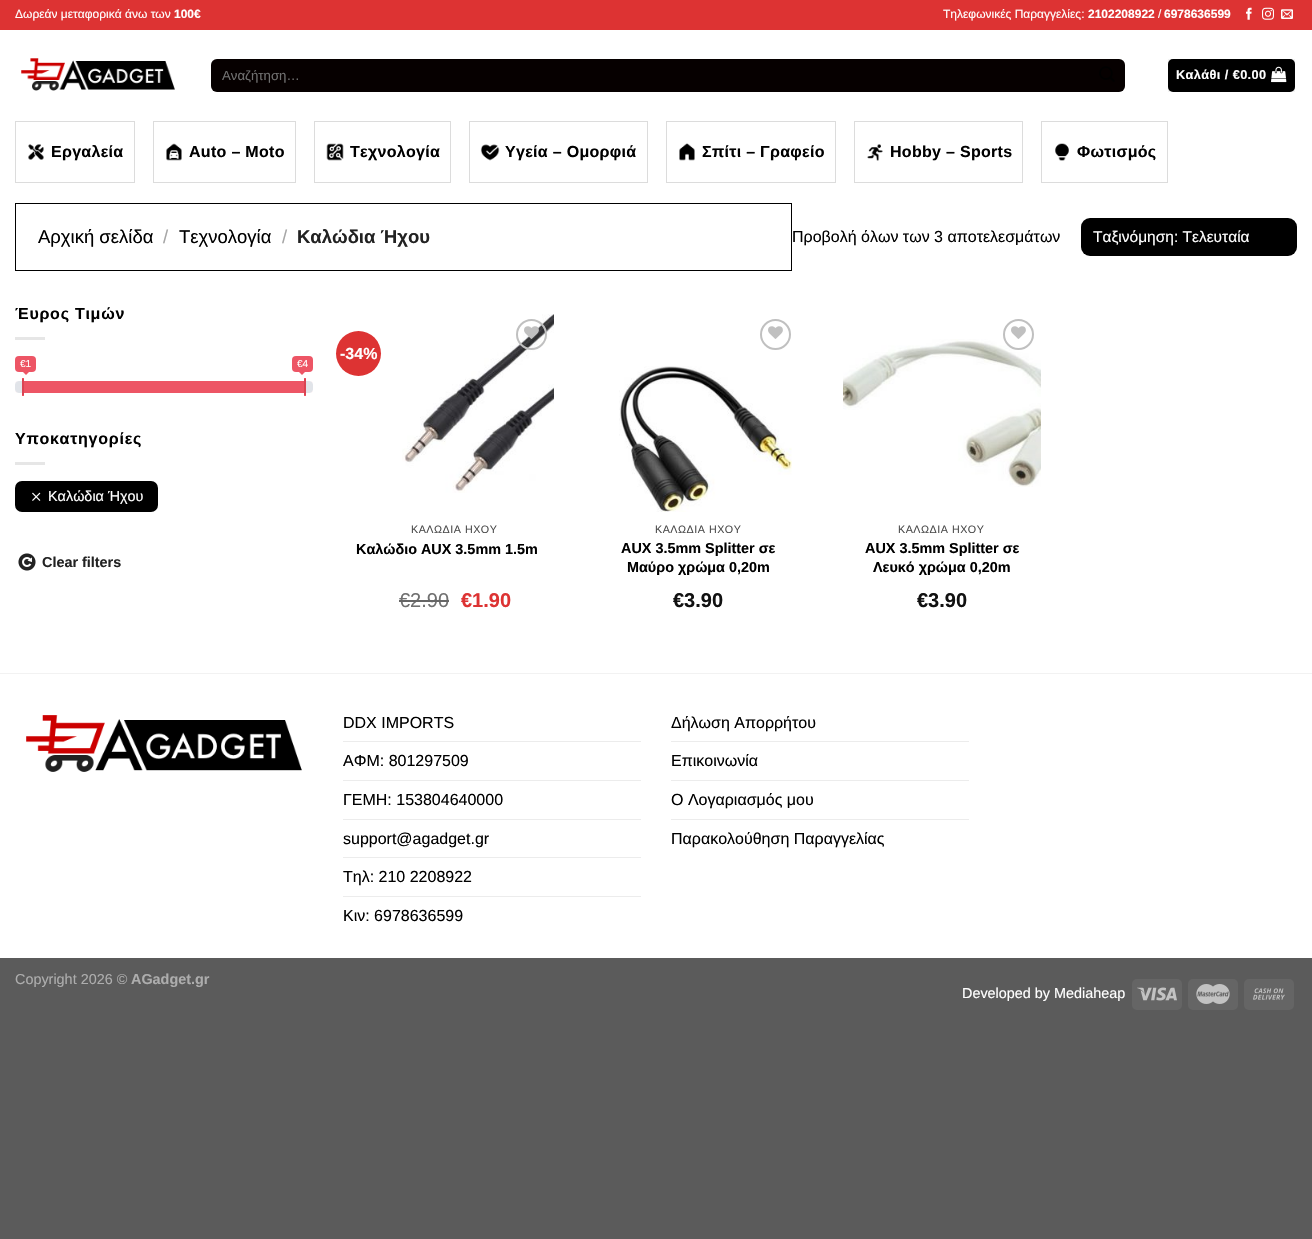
void draw(SkCanvas* canvas) {
  SkPaint paint;
  paint.setAntiAlias(true);
  auto face = [&](const char* family, int weight, float size, bool italic = false) {
    SkFontStyle style(weight, SkFontStyle::kNormal_Width,
      italic ? SkFontStyle::kItalic_Slant : SkFontStyle::kUpright_Slant);
    SkFont result(fontMgr->matchFamilyStyle(family, style), size);
    result.setSubpixel(true);
    return result;
  };
  auto writeSpaced = [&](const char* s, float x, float y, const SkFont& font, const SkPaint& ink, float letter, float word) {
    std::vector<SkGlyphID> glyphs(font.countText(s, strlen(s), SkTextEncoding::kUTF8));
    std::vector<float> xs(glyphs.size());
    font.textToGlyphs(s, strlen(s), SkTextEncoding::kUTF8, glyphs);
    font.getXPos(glyphs, xs, x);
    float extra = 0;
    for (size_t i = 0; i < glyphs.size(); i++) {
      xs[i] += extra;
      extra += letter + word * (glyphs[i] == font.unicharToGlyph(' '));
    }
    canvas->drawTextBlob(SkTextBlob::MakeFromPosHGlyphs(glyphs, xs, y, font), 0, 0, ink);
  };
  auto paste = [&](const char* path, float x, float y, float w, float h) {
    auto image = SkImages::DeferredFromEncodedData(SkData::MakeFromFileName(path));
    canvas->drawImageRect(image, SkRect::MakeXYWH(x, y, w, h), SkSamplingOptions());
  };
  auto shape = [&](const char* data, bool evenOdd = false) {
    SkPath result = *SkParsePath::FromSVGString(data);
    if (evenOdd) result.setFillType(SkPathFillType::kEvenOdd);
    return result;
  };
  canvas->clear(0xff5b5b5b);
  paint.setColor(0xffffffff);
  canvas->drawRect(SkRect::MakeXYWH(0, 30, 1312, 928), paint);
  paint.setColor(0xffdd3333);
  canvas->drawRect(SkRect::MakeXYWH(0, 0, 1312, 30), paint);
  paste("img/1.png", 1246, 7, 6, 13);
  paste("img/2.png", 1262, 7, 12, 13);
  paste("img/3.png", 1281, 9, 12, 10);
  paste("img/4.png", 21, 58, 154, 33);
  paint.setColor(0xff060000);
  canvas->drawRoundRect(SkRect::MakeXYWH(211, 59, 914, 33), 6, 6, paint);
  paint.setStroke(true);
  paint.setStrokeWidth(1);
  paint.setColor(0x17000000);
  canvas->drawRoundRect(SkRect::MakeXYWH(211.5f, 59.5f, 913, 32), 5.5f, 5.5f, paint);
  paste("img/5.png", 1099, 66, 16, 16);
  paint.setStroke(false);
  paint.setColor(0xff000000);
  canvas->drawRoundRect(SkRect::MakeXYWH(1168, 59, 127, 33), 5, 5, paint);
  paint.setStroke(true);
  paint.setColor(0x0d000000);
  canvas->drawRect(SkRect::MakeXYWH(1168.5f, 59.5f, 126, 32), paint);
  paste("img/6.png", 1271, 66, 16, 17);
  paint.setColor(0xffdcdcdc);
  canvas->drawRect(SkRect::MakeXYWH(15.5f, 121.5f, 119, 61), paint);
  paste("img/7.png", 28, 144, 16, 16);
  canvas->drawRect(SkRect::MakeXYWH(153.5f, 121.5f, 142, 61), paint);
  paste("img/8.png", 166, 143, 16, 18);
  canvas->drawRect(SkRect::MakeXYWH(314.5f, 121.5f, 136, 61), paint);
  paste("img/9.png", 326, 143, 18, 18);
  canvas->drawRect(SkRect::MakeXYWH(469.5f, 121.5f, 178, 61), paint);
  paste("img/10.png", 480, 144, 20, 17);
  canvas->drawRect(SkRect::MakeXYWH(666.5f, 121.5f, 169, 61), paint);
  paste("img/11.png", 679, 143, 16, 18);
  canvas->drawRect(SkRect::MakeXYWH(854.5f, 121.5f, 168, 61), paint);
  paste("img/12.png", 867, 144, 16, 17);
  canvas->drawRect(SkRect::MakeXYWH(1041.5f, 121.5f, 126, 61), paint);
  paste("img/13.png", 1055, 143, 14, 18);
  paint.setColor(0xff000000);
  canvas->drawRect(SkRect::MakeXYWH(15.5f, 203.5f, 776, 67), paint);
  paint.setStroke(false);
  canvas->drawRoundRect(SkRect::MakeXYWH(1081, 218, 216, 38), 9, 9, paint);
  paint.setColor(0xffe6e6e6);
  canvas->drawRect(SkRect::MakeXYWH(15, 337, 30, 3), paint);
  paint.setColor(0xffed5565);
  canvas->drawRoundRect(SkRect::MakeXYWH(15, 356, 21, 16), 4, 4, paint);
  canvas->drawPath(shape("M23 372H29L26 375Z"), paint);
  canvas->drawRoundRect(SkRect::MakeXYWH(292, 356, 21, 16), 4, 4, paint);
  canvas->drawPath(shape("M299 372H305L302 375Z"), paint);
  paste("img/14.png", 15, 381, 7, 12);
  paste("img/15.png", 306, 381, 7, 12);
  paste("img/16.png", 22, 378, 2, 18);
  canvas->drawRect(SkRect::MakeXYWH(24, 381, 280, 12), paint);
  paste("img/16.png", 304, 378, 2, 18);
  paint.setColor(0xffe6e6e6);
  canvas->drawRect(SkRect::MakeXYWH(15, 462, 30, 3), paint);
  paint.setColor(0xff000000);
  canvas->drawRoundRect(SkRect::MakeXYWH(15, 481, 143, 31), 7, 7, paint);
  paste("img/17.png", 32, 492, 9, 9);
  paste("img/18.png", 18, 553, 18, 18);
  paint.setColor(0xffdd3333);
  canvas->drawCircle(358.5f, 353.5f, 22.5f, paint);
  paste("img/19.png", 402, 314, 152, 179);
  paint.setStroke(true);
  paint.setStrokeWidth(2);
  paint.setColor(0xffc0c0c0);
  canvas->drawCircle(531.5f, 334.5f, 14.5f, paint);
  paste("img/20.png", 524, 326, 15, 13);
  canvas->drawCircle(775.5f, 334.5f, 14.5f, paint);
  paste("img/21.png", 768, 326, 15, 13);
  paste("img/22.png", 619, 366, 173, 146);
  paste("img/23.png", 843, 339, 198, 148);
  canvas->drawCircle(1018.5f, 334.5f, 14.5f, paint);
  paste("img/21.png", 1011, 326, 15, 13);
  paint.setStroke(false);
  paint.setColor(0xfff2f2f2);
  canvas->drawRect(SkRect::MakeXYWH(0, 673, 1312, 1), paint);
  paste("img/24.png", 26, 715, 276, 57);
  {
    const struct { float x, y, w, h; SkColor color; } items[] = {
      {343, 741, 298, 1, 0xffececec},
      {343, 780, 298, 1, 0xffececec},
      {343, 819, 298, 1, 0xffececec},
      {343, 857, 298, 1, 0xffececec},
      {343, 896, 298, 1, 0xffececec},
      {671, 741, 298, 1, 0xffececec},
      {671, 780, 298, 1, 0xffececec},
      {671, 819, 298, 1, 0xffececec},
    };
    for (auto [x, y, w, h, color] : items) {
      paint.setColor(color);
      canvas->drawRect(SkRect::MakeXYWH(x, y, w, h), paint);
    }
  }
  paint.setColor(0xff656565);
  canvas->drawRoundRect(SkRect::MakeXYWH(1132, 979, 50, 31), 5, 5, paint);
  paste("img/25.png", 1137, 987, 40, 14);
  canvas->drawRoundRect(SkRect::MakeXYWH(1188, 979, 50, 31), 5, 5, paint);
  paste("img/26.png", 1196, 984, 34, 20);
  canvas->drawRoundRect(SkRect::MakeXYWH(1244, 979, 50, 31), 5, 5, paint);
  paste("img/27.png", 1253, 988, 32, 12);
  auto f0 = face("Liberation Sans", 400, 12);
  paint.setColor(0xffffffff);
  canvas->drawString("Δωρεάν μεταφορικά άνω των", 15, 18, f0, paint);
  auto f1 = face("Liberation Sans", 700, 12);
  canvas->drawString("100€", 174, 18, f1, paint);
  canvas->drawString("Τηλεφωνικές Παραγγελίες:", 943, 18, f0, paint);
  canvas->drawString("2102208922", 1088, 18, f1, paint);
  canvas->drawString("/", 1158, 18, f0, paint);
  canvas->drawString("6978636599", 1164, 18, f1, paint);
  auto f2 = face("Liberation Sans", 400, 13.25f);
  paint.setColor(0xff707070);
  canvas->drawString("Αναζήτηση…", 222, 80, f2, paint);
  auto f3 = face("Liberation Sans", 700, 12.75f);
  paint.setColor(0xffffffff);
  writeSpaced("Καλάθι / €0.00", 1176, 79, f3, paint, 0.4f, 0);
  auto f4 = face("Liberation Sans", 700, 16);
  paint.setColor(0xff000000);
  {
    const struct { const char* s; float x, y; } items[] = {
      {"Εργαλεία", 51, 157},
      {"Auto – Moto", 189, 157},
      {"Τεχνολογία", 350, 157},
      {"Υγεία – Ομορφιά", 505, 157},
      {"Σπίτι – Γραφείο", 702, 157},
      {"Hobby – Sports", 890, 157},
      {"Φωτισμός", 1077, 157},
    };
    for (auto [s, x, y] : items) {
      writeSpaced(s, x, y, f4, paint, 0.3f, 0);
    }
  }
  auto f5 = face("Liberation Sans", 400, 18.5f);
  canvas->drawString("Αρχική σελίδα", 38, 243, f5, paint);
  paint.setColor(0xffa6a6a6);
  canvas->drawString("/", 163, 243, f5, paint);
  paint.setColor(0xff000000);
  canvas->drawString("Τεχνολογία", 179, 243, f5, paint);
  paint.setColor(0xffa6a6a6);
  canvas->drawString("/", 282, 243, f5, paint);
  auto f6 = face("Liberation Sans", 700, 18.5f);
  paint.setColor(0xff222222);
  canvas->drawString("Καλώδια Ήχου", 297, 243, f6, paint);
  auto f7 = face("Liberation Sans", 400, 16);
  paint.setColor(0xff000000);
  canvas->drawString("Προβολή όλων των 3 αποτελεσμάτων", 792, 242, f7, paint);
  auto f8 = face("Liberation Sans", 400, 15.5f);
  paint.setColor(0xffffffff);
  canvas->drawString("Ταξινόμηση: Τελευταία", 1093, 242, f8, paint);
  paint.setColor(0xff000000);
  writeSpaced("Έυρος Τιμών", 15, 319, f4, paint, 0.75f, 0);
  auto f9 = face("Liberation Sans", 400, 10);
  paint.setColor(0xffffffff);
  canvas->drawString("€1", 20, 367, f9, paint);
  canvas->drawString("€4", 297, 367, f9, paint);
  paint.setColor(0xff000000);
  writeSpaced("Υποκατηγορίες", 15, 444, f4, paint, 0.75f, 0);
  auto f10 = face("Liberation Sans", 400, 14.4f);
  paint.setColor(0xffffffff);
  canvas->drawString("Καλώδια Ήχου", 48, 501, f10, paint);
  auto f11 = face("Liberation Sans", 700, 14.4f);
  paint.setColor(0xff222222);
  canvas->drawString("Clear filters", 42, 567, f11, paint);
  paint.setColor(0xffffffff);
  canvas->drawString("-34%", 340, 359, f4, paint);
  auto f12 = face("Liberation Sans", 400, 10.75f);
  paint.setColor(0xff4d4d4d);
  writeSpaced("ΚΑΛΩΔΙΑ ΗΧΟΥ", 411, 533, f12, paint, 0.5f, 0);
  paint.setColor(0xff000000);
  canvas->drawString("Καλώδιο AUX 3.5mm 1.5m", 356, 554, f11, paint);
  auto f13 = face("Liberation Sans", 400, 20);
  paint.setColor(0xff707070);
  canvas->drawString("€2.90", 399, 607, f13, paint);
  paint.setColor(0xff666666);
  canvas->drawRect(SkRect::MakeXYWH(399, 600, 50, 2), paint);
  auto f14 = face("Liberation Sans", 700, 20);
  paint.setColor(0xffdd3333);
  canvas->drawString("€1.90", 461, 607, f14, paint);
  paint.setColor(0xff4d4d4d);
  writeSpaced("ΚΑΛΩΔΙΑ ΗΧΟΥ", 655, 533, f12, paint, 0.5f, 0);
  paint.setColor(0xff000000);
  canvas->drawString("AUX 3.5mm Splitter σε", 621, 553, f11, paint);
  canvas->drawString("Μαύρο χρώμα 0,20m", 627, 572, f11, paint);
  paint.setColor(0xff111111);
  canvas->drawString("€3.90", 673, 607, f14, paint);
  paint.setColor(0xff4d4d4d);
  writeSpaced("ΚΑΛΩΔΙΑ ΗΧΟΥ", 898, 533, f12, paint, 0.5f, 0);
  paint.setColor(0xff000000);
  canvas->drawString("AUX 3.5mm Splitter σε", 865, 553, f11, paint);
  canvas->drawString("Λευκό χρώμα 0,20m", 873, 572, f11, paint);
  paint.setColor(0xff111111);
  canvas->drawString("€3.90", 917, 607, f14, paint);
  paint.setColor(0xff000000);
  {
    const struct { const char* s; float x, y; } items[] = {
      {"DDX IMPORTS", 343, 728},
      {"ΑΦΜ: 801297509", 343, 766},
      {"ΓΕΜΗ: 153804640000", 343, 805},
      {"support@agadget.gr", 343, 844},
      {"Τηλ: 210 2208922", 343, 882},
      {"Κιν: 6978636599", 343, 921},
      {"Δήλωση Απορρήτου", 671, 728},
      {"Επικοινωνία", 671, 766},
      {"Ο Λογαριασμός μου", 671, 805},
      {"Παρακολούθηση Παραγγελίας", 671, 844},
    };
    for (auto [s, x, y] : items) {
      canvas->drawString(s, x, y, f7, paint);
    }
  }
  paint.setColor(0xffadadad);
  canvas->drawString("Copyright 2026 ©", 15, 984, f10, paint);
  canvas->drawString("AGadget.gr", 131, 984, f11, paint);
  paint.setColor(0xffffffff);
  canvas->drawString("Developed by Mediaheap", 962, 998, f10, paint);
}
